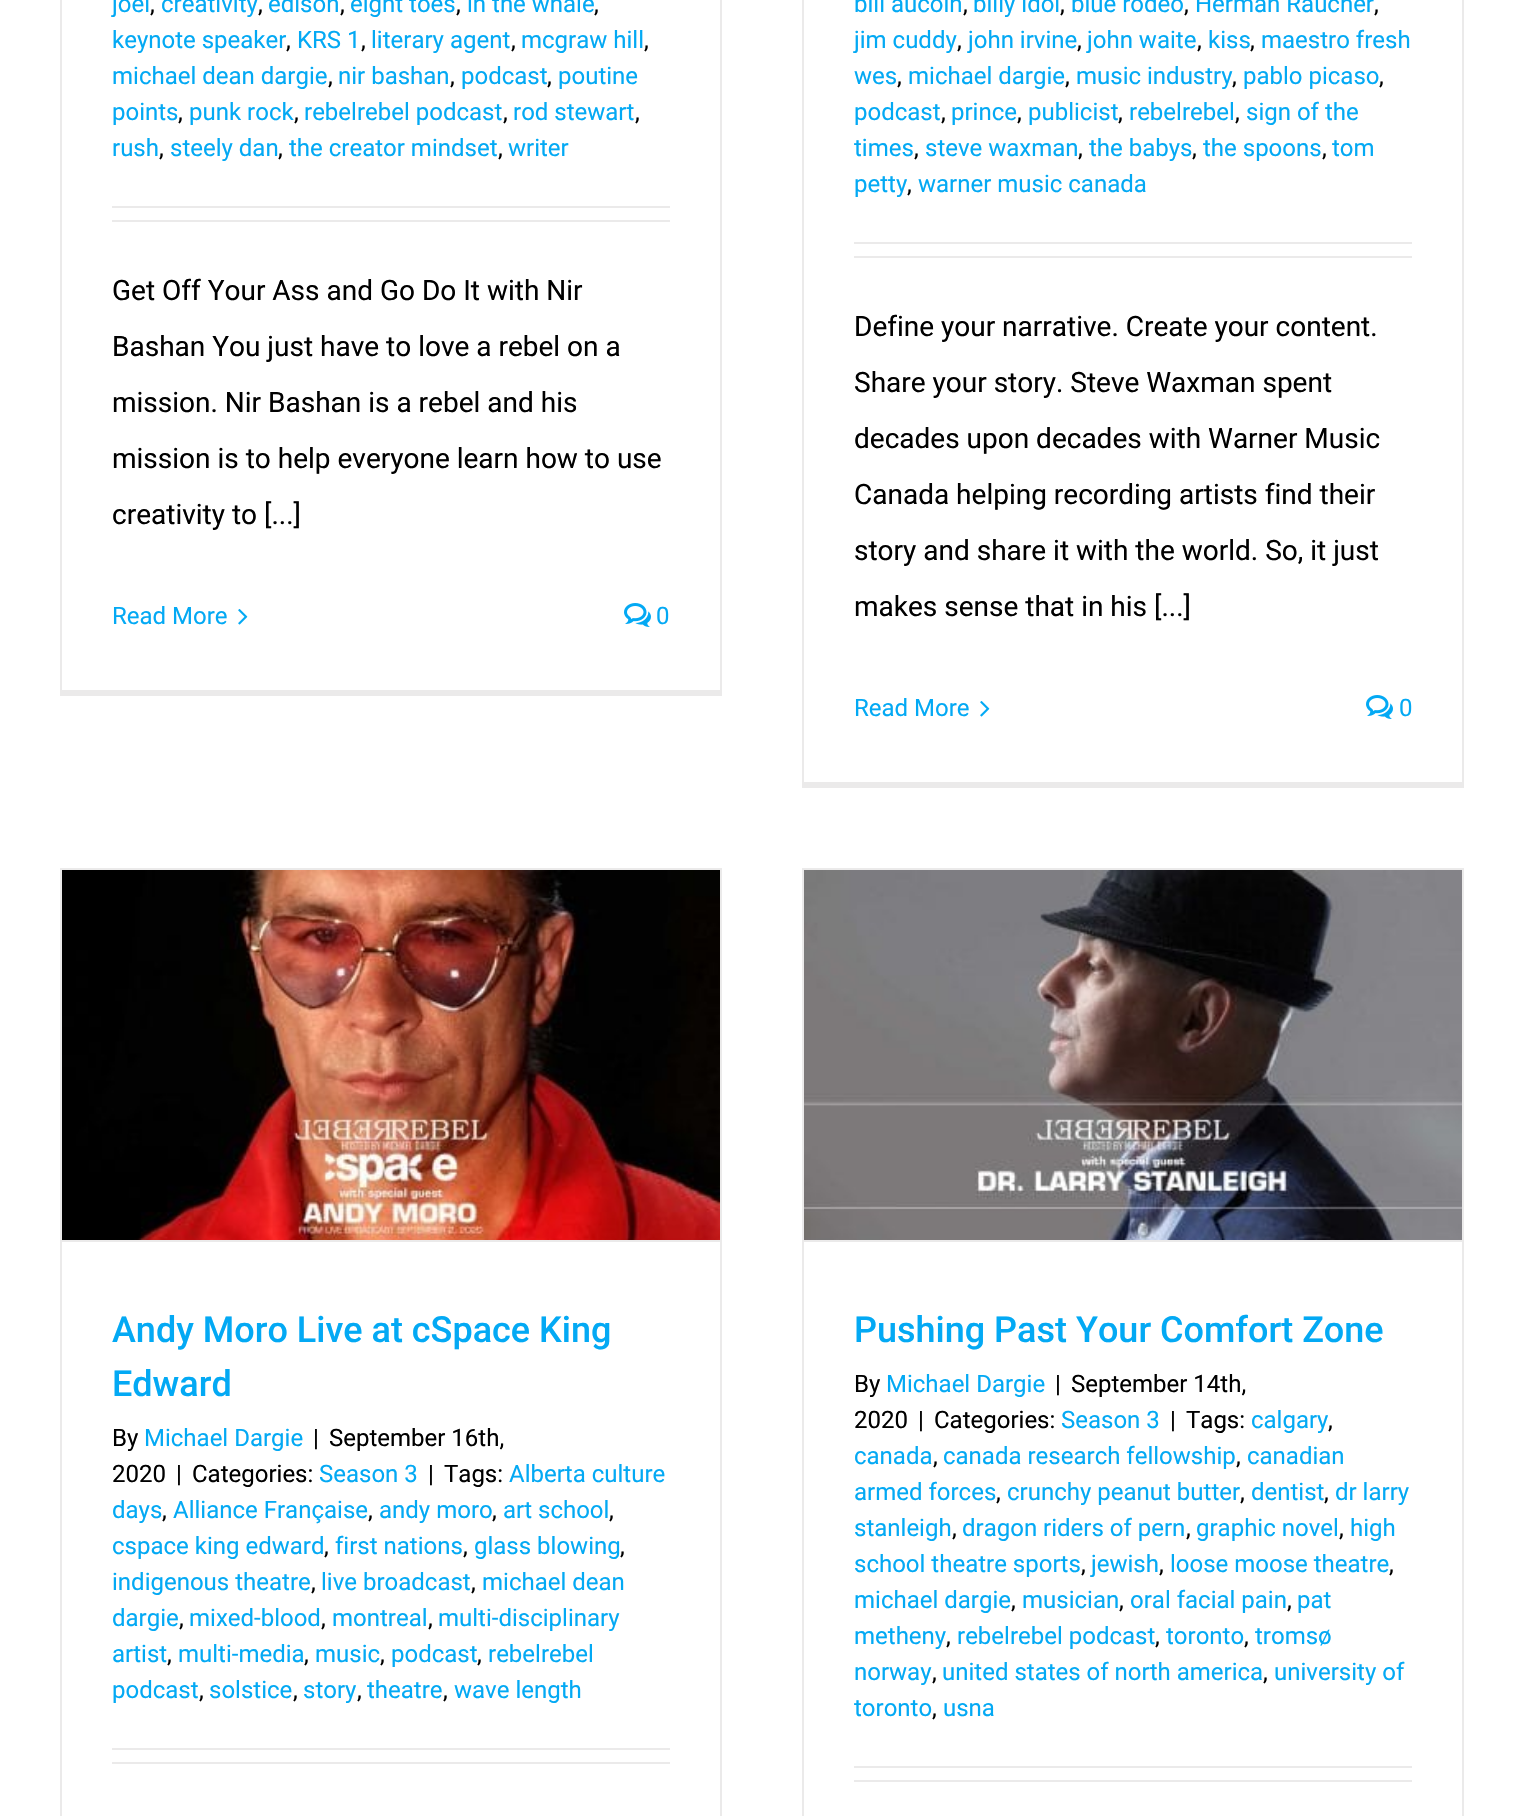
void draw(SkCanvas* canvas) {
  SkPaint paint;
  paint.setAntiAlias(true);
  auto face = [&](const char* family, int weight, float size, bool italic = false) {
    SkFontStyle style(weight, SkFontStyle::kNormal_Width,
      italic ? SkFontStyle::kItalic_Slant : SkFontStyle::kUpright_Slant);
    SkFont result(fontMgr->matchFamilyStyle(family, style), size);
    result.setSubpixel(true);
    return result;
  };
  auto paste = [&](const char* path, float x, float y, float w, float h) {
    auto image = SkImages::DeferredFromEncodedData(SkData::MakeFromFileName(path));
    canvas->drawImageRect(image, SkRect::MakeXYWH(x, y, w, h), SkSamplingOptions());
  };
  canvas->clear(0xffffffff);
  {
    const struct { float x, y, w, h; SkColor color; } items[] = {
      {720, 0, 2, 696, 0xffebeaea},
      {60, 690, 662, 6, 0xffebeaea},
      {60, 0, 2, 696, 0xffebeaea},
      {112, 206, 558, 2, 0xffebeaea},
      {112, 220, 558, 2, 0xffebeaea},
    };
    for (auto [x, y, w, h, color] : items) {
      paint.setColor(color);
      canvas->drawRect(SkRect::MakeXYWH(x, y, w, h), paint);
    }
  }
  paste("img/1.png", 238, 609, 10, 16);
  paste("img/2.png", 624, 603, 27, 24);
  {
    const struct { float x, y, w, h; SkColor color; } items[] = {
      {1462, 0, 2, 788, 0xffebeaea},
      {802, 782, 662, 6, 0xffebeaea},
      {802, 0, 2, 788, 0xffebeaea},
      {854, 242, 558, 2, 0xffebeaea},
      {854, 256, 558, 2, 0xffebeaea},
    };
    for (auto [x, y, w, h, color] : items) {
      paint.setColor(color);
      canvas->drawRect(SkRect::MakeXYWH(x, y, w, h), paint);
    }
  }
  paste("img/1.png", 980, 701, 10, 16);
  paste("img/2.png", 1366, 695, 27, 24);
  {
    const struct { float x, y, w, h; SkColor color; } items[] = {
      {60, 868, 662, 2, 0xffebeaea},
      {720, 868, 2, 948, 0xffebeaea},
      {60, 868, 2, 948, 0xffebeaea},
      {62, 1240, 658, 2, 0xffebeaea},
    };
    for (auto [x, y, w, h, color] : items) {
      paint.setColor(color);
      canvas->drawRect(SkRect::MakeXYWH(x, y, w, h), paint);
    }
  }
  paste("img/3.png", 62, 870, 658, 370);
  {
    const struct { float x, y, w, h; SkColor color; } items[] = {
      {112, 1748, 558, 2, 0xffebeaea},
      {112, 1762, 558, 2, 0xffebeaea},
      {802, 868, 662, 2, 0xffebeaea},
      {1462, 868, 2, 948, 0xffebeaea},
      {802, 868, 2, 948, 0xffebeaea},
      {804, 1240, 658, 2, 0xffebeaea},
    };
    for (auto [x, y, w, h, color] : items) {
      paint.setColor(color);
      canvas->drawRect(SkRect::MakeXYWH(x, y, w, h), paint);
    }
  }
  paste("img/4.png", 804, 870, 658, 370);
  canvas->drawRect(SkRect::MakeXYWH(854, 1766, 558, 2), paint);
  canvas->drawRect(SkRect::MakeXYWH(854, 1780, 558, 2), paint);
  auto f0 = face("Roboto", 400, 24);
  paint.setColor(0xff03a9f4);
  canvas->drawString("joel", 112, 12, f0, paint);
  paint.setColor(0xff000000);
  canvas->drawString(",", 150, 12, f0, paint);
  paint.setColor(0xff03a9f4);
  canvas->drawString("creativity", 161, 12, f0, paint);
  paint.setColor(0xff000000);
  canvas->drawString(",", 258, 12, f0, paint);
  paint.setColor(0xff03a9f4);
  canvas->drawString("edison", 268, 12, f0, paint);
  paint.setColor(0xff000000);
  canvas->drawString(",", 340, 12, f0, paint);
  paint.setColor(0xff03a9f4);
  canvas->drawString("eight toes", 350, 12, f0, paint);
  paint.setColor(0xff000000);
  canvas->drawString(",", 456, 12, f0, paint);
  paint.setColor(0xff03a9f4);
  canvas->drawString("in the whale", 467, 12, f0, paint);
  paint.setColor(0xff000000);
  canvas->drawString(",", 594, 12, f0, paint);
  paint.setColor(0xff03a9f4);
  canvas->drawString("keynote speaker", 112, 48, f0, paint);
  paint.setColor(0xff000000);
  canvas->drawString(",", 286, 48, f0, paint);
  paint.setColor(0xff03a9f4);
  canvas->drawString("KRS 1", 297, 48, f0, paint);
  paint.setColor(0xff000000);
  canvas->drawString(",", 361, 48, f0, paint);
  paint.setColor(0xff03a9f4);
  canvas->drawString("literary agent", 371, 48, f0, paint);
  paint.setColor(0xff000000);
  canvas->drawString(",", 511, 48, f0, paint);
  paint.setColor(0xff03a9f4);
  canvas->drawString("mcgraw hill", 521, 48, f0, paint);
  paint.setColor(0xff000000);
  canvas->drawString(",", 644, 48, f0, paint);
  paint.setColor(0xff03a9f4);
  canvas->drawString("michael dean dargie", 112, 84, f0, paint);
  paint.setColor(0xff000000);
  canvas->drawString(",", 328, 84, f0, paint);
  paint.setColor(0xff03a9f4);
  canvas->drawString("nir bashan", 338, 84, f0, paint);
  paint.setColor(0xff000000);
  canvas->drawString(",", 450, 84, f0, paint);
  paint.setColor(0xff03a9f4);
  canvas->drawString("podcast", 461, 84, f0, paint);
  paint.setColor(0xff000000);
  canvas->drawString(",", 547, 84, f0, paint);
  paint.setColor(0xff03a9f4);
  canvas->drawString("poutine", 558, 84, f0, paint);
  canvas->drawString("points", 112, 120, f0, paint);
  paint.setColor(0xff000000);
  canvas->drawString(",", 178, 120, f0, paint);
  paint.setColor(0xff03a9f4);
  canvas->drawString("punk rock", 189, 120, f0, paint);
  paint.setColor(0xff000000);
  canvas->drawString(",", 294, 120, f0, paint);
  paint.setColor(0xff03a9f4);
  canvas->drawString("rebelrebel podcast", 304, 120, f0, paint);
  paint.setColor(0xff000000);
  canvas->drawString(",", 503, 120, f0, paint);
  paint.setColor(0xff03a9f4);
  canvas->drawString("rod stewart", 513, 120, f0, paint);
  paint.setColor(0xff000000);
  canvas->drawString(",", 635, 120, f0, paint);
  paint.setColor(0xff03a9f4);
  canvas->drawString("rush", 112, 156, f0, paint);
  paint.setColor(0xff000000);
  canvas->drawString(",", 159, 156, f0, paint);
  paint.setColor(0xff03a9f4);
  canvas->drawString("steely dan", 170, 156, f0, paint);
  paint.setColor(0xff000000);
  canvas->drawString(",", 278, 156, f0, paint);
  paint.setColor(0xff03a9f4);
  canvas->drawString("the creator mindset", 289, 156, f0, paint);
  paint.setColor(0xff000000);
  canvas->drawString(",", 498, 156, f0, paint);
  paint.setColor(0xff03a9f4);
  canvas->drawString("writer", 508, 156, f0, paint);
  auto f1 = face("Roboto", 400, 28);
  paint.setColor(0xff000000);
  {
    const struct { const char* s; float x, y; } items[] = {
      {"Get Off Your Ass and Go Do It with Nir", 112, 300},
      {"Bashan You just have to love a rebel on a", 112, 356},
      {"mission. Nir Bashan is a rebel and his", 112, 412},
      {"mission is to help everyone learn how to use", 112, 468},
      {"creativity to [...]", 112, 524},
    };
    for (auto [s, x, y] : items) {
      canvas->drawString(s, x, y, f1, paint);
    }
  }
  paint.setColor(0xff03a9f4);
  {
    const struct { const char* s; float x, y; } items[] = {
      {"Read More", 112, 624},
      {"0", 656, 624},
      {"bill aucoin", 854, 12},
    };
    for (auto [s, x, y] : items) {
      canvas->drawString(s, x, y, f0, paint);
    }
  }
  paint.setColor(0xff000000);
  canvas->drawString(",", 963, 12, f0, paint);
  paint.setColor(0xff03a9f4);
  canvas->drawString("billy idol", 973, 12, f0, paint);
  paint.setColor(0xff000000);
  canvas->drawString(",", 1060, 12, f0, paint);
  paint.setColor(0xff03a9f4);
  canvas->drawString("blue rodeo", 1071, 12, f0, paint);
  paint.setColor(0xff000000);
  canvas->drawString(",", 1184, 12, f0, paint);
  paint.setColor(0xff03a9f4);
  canvas->drawString("Herman Raucher", 1195, 12, f0, paint);
  paint.setColor(0xff000000);
  canvas->drawString(",", 1374, 12, f0, paint);
  paint.setColor(0xff03a9f4);
  canvas->drawString("jim cuddy", 854, 48, f0, paint);
  paint.setColor(0xff000000);
  canvas->drawString(",", 957, 48, f0, paint);
  paint.setColor(0xff03a9f4);
  canvas->drawString("john irvine", 968, 48, f0, paint);
  paint.setColor(0xff000000);
  canvas->drawString(",", 1077, 48, f0, paint);
  paint.setColor(0xff03a9f4);
  canvas->drawString("john waite", 1087, 48, f0, paint);
  paint.setColor(0xff000000);
  canvas->drawString(",", 1197, 48, f0, paint);
  paint.setColor(0xff03a9f4);
  canvas->drawString("kiss", 1208, 48, f0, paint);
  paint.setColor(0xff000000);
  canvas->drawString(",", 1250, 48, f0, paint);
  paint.setColor(0xff03a9f4);
  canvas->drawString("maestro fresh", 1261, 48, f0, paint);
  canvas->drawString("wes", 854, 84, f0, paint);
  paint.setColor(0xff000000);
  canvas->drawString(",", 897, 84, f0, paint);
  paint.setColor(0xff03a9f4);
  canvas->drawString("michael dargie", 908, 84, f0, paint);
  paint.setColor(0xff000000);
  canvas->drawString(",", 1065, 84, f0, paint);
  paint.setColor(0xff03a9f4);
  canvas->drawString("music industry", 1076, 84, f0, paint);
  paint.setColor(0xff000000);
  canvas->drawString(",", 1232, 84, f0, paint);
  paint.setColor(0xff03a9f4);
  canvas->drawString("pablo picaso", 1243, 84, f0, paint);
  paint.setColor(0xff000000);
  canvas->drawString(",", 1379, 84, f0, paint);
  paint.setColor(0xff03a9f4);
  canvas->drawString("podcast", 854, 120, f0, paint);
  paint.setColor(0xff000000);
  canvas->drawString(",", 941, 120, f0, paint);
  paint.setColor(0xff03a9f4);
  canvas->drawString("prince", 951, 120, f0, paint);
  paint.setColor(0xff000000);
  canvas->drawString(",", 1017, 120, f0, paint);
  paint.setColor(0xff03a9f4);
  canvas->drawString("publicist", 1028, 120, f0, paint);
  paint.setColor(0xff000000);
  canvas->drawString(",", 1118, 120, f0, paint);
  paint.setColor(0xff03a9f4);
  canvas->drawString("rebelrebel", 1129, 120, f0, paint);
  paint.setColor(0xff000000);
  canvas->drawString(",", 1235, 120, f0, paint);
  paint.setColor(0xff03a9f4);
  canvas->drawString("sign of the", 1246, 120, f0, paint);
  canvas->drawString("times", 854, 156, f0, paint);
  paint.setColor(0xff000000);
  canvas->drawString(",", 914, 156, f0, paint);
  paint.setColor(0xff03a9f4);
  canvas->drawString("steve waxman", 925, 156, f0, paint);
  paint.setColor(0xff000000);
  canvas->drawString(",", 1078, 156, f0, paint);
  paint.setColor(0xff03a9f4);
  canvas->drawString("the babys", 1089, 156, f0, paint);
  paint.setColor(0xff000000);
  canvas->drawString(",", 1192, 156, f0, paint);
  paint.setColor(0xff03a9f4);
  canvas->drawString("the spoons", 1203, 156, f0, paint);
  paint.setColor(0xff000000);
  canvas->drawString(",", 1322, 156, f0, paint);
  paint.setColor(0xff03a9f4);
  canvas->drawString("tom", 1332, 156, f0, paint);
  canvas->drawString("petty", 854, 192, f0, paint);
  paint.setColor(0xff000000);
  canvas->drawString(",", 907, 192, f0, paint);
  paint.setColor(0xff03a9f4);
  canvas->drawString("warner music canada", 918, 192, f0, paint);
  paint.setColor(0xff000000);
  {
    const struct { const char* s; float x, y; } items[] = {
      {"Define your narrative. Create your content.", 854, 336},
      {"Share your story. Steve Waxman spent", 854, 392},
      {"decades upon decades with Warner Music", 854, 448},
      {"Canada helping recording artists find their", 854, 504},
      {"story and share it with the world. So, it just", 854, 560},
      {"makes sense that in his [...]", 854, 616},
    };
    for (auto [s, x, y] : items) {
      canvas->drawString(s, x, y, f1, paint);
    }
  }
  paint.setColor(0xff03a9f4);
  canvas->drawString("Read More", 854, 716, f0, paint);
  canvas->drawString("0", 1399, 716, f0, paint);
  auto f2 = face("Roboto", 500, 36);
  canvas->drawString("Andy Moro Live at cSpace King", 112, 1342, f2, paint);
  canvas->drawString("Edward", 112, 1396, f2, paint);
  paint.setColor(0xff000000);
  canvas->drawString("By", 112, 1446, f0, paint);
  paint.setColor(0xff03a9f4);
  canvas->drawString("Michael Dargie", 144, 1446, f0, paint);
  paint.setColor(0xff000000);
  {
    const struct { const char* s; float x, y; } items[] = {
      {"|", 313, 1446},
      {"September 16th,", 329, 1446},
      {"2020", 112, 1482},
      {"|", 176, 1482},
      {"Categories:", 192, 1482},
    };
    for (auto [s, x, y] : items) {
      canvas->drawString(s, x, y, f0, paint);
    }
  }
  paint.setColor(0xff03a9f4);
  canvas->drawString("Season 3", 319, 1482, f0, paint);
  paint.setColor(0xff000000);
  canvas->drawString("|", 428, 1482, f0, paint);
  canvas->drawString("Tags:", 444, 1482, f0, paint);
  paint.setColor(0xff03a9f4);
  canvas->drawString("Alberta culture", 509, 1482, f0, paint);
  canvas->drawString("days", 112, 1518, f0, paint);
  paint.setColor(0xff000000);
  canvas->drawString(",", 162, 1518, f0, paint);
  paint.setColor(0xff03a9f4);
  canvas->drawString("Alliance Française", 173, 1518, f0, paint);
  paint.setColor(0xff000000);
  canvas->drawString(",", 368, 1518, f0, paint);
  paint.setColor(0xff03a9f4);
  canvas->drawString("andy moro", 379, 1518, f0, paint);
  paint.setColor(0xff000000);
  canvas->drawString(",", 492, 1518, f0, paint);
  paint.setColor(0xff03a9f4);
  canvas->drawString("art school", 503, 1518, f0, paint);
  paint.setColor(0xff000000);
  canvas->drawString(",", 609, 1518, f0, paint);
  paint.setColor(0xff03a9f4);
  canvas->drawString("cspace king edward", 112, 1554, f0, paint);
  paint.setColor(0xff000000);
  canvas->drawString(",", 324, 1554, f0, paint);
  paint.setColor(0xff03a9f4);
  canvas->drawString("first nations", 335, 1554, f0, paint);
  paint.setColor(0xff000000);
  canvas->drawString(",", 463, 1554, f0, paint);
  paint.setColor(0xff03a9f4);
  canvas->drawString("glass blowing", 474, 1554, f0, paint);
  paint.setColor(0xff000000);
  canvas->drawString(",", 620, 1554, f0, paint);
  paint.setColor(0xff03a9f4);
  canvas->drawString("indigenous theatre", 112, 1590, f0, paint);
  paint.setColor(0xff000000);
  canvas->drawString(",", 311, 1590, f0, paint);
  paint.setColor(0xff03a9f4);
  canvas->drawString("live broadcast", 321, 1590, f0, paint);
  paint.setColor(0xff000000);
  canvas->drawString(",", 471, 1590, f0, paint);
  paint.setColor(0xff03a9f4);
  canvas->drawString("michael dean", 482, 1590, f0, paint);
  canvas->drawString("dargie", 112, 1626, f0, paint);
  paint.setColor(0xff000000);
  canvas->drawString(",", 179, 1626, f0, paint);
  paint.setColor(0xff03a9f4);
  canvas->drawString("mixed-blood", 189, 1626, f0, paint);
  paint.setColor(0xff000000);
  canvas->drawString(",", 321, 1626, f0, paint);
  paint.setColor(0xff03a9f4);
  canvas->drawString("montreal", 332, 1626, f0, paint);
  paint.setColor(0xff000000);
  canvas->drawString(",", 428, 1626, f0, paint);
  paint.setColor(0xff03a9f4);
  canvas->drawString("multi-disciplinary", 438, 1626, f0, paint);
  canvas->drawString("artist", 112, 1662, f0, paint);
  paint.setColor(0xff000000);
  canvas->drawString(",", 167, 1662, f0, paint);
  paint.setColor(0xff03a9f4);
  canvas->drawString("multi-media", 178, 1662, f0, paint);
  paint.setColor(0xff000000);
  canvas->drawString(",", 304, 1662, f0, paint);
  paint.setColor(0xff03a9f4);
  canvas->drawString("music", 315, 1662, f0, paint);
  paint.setColor(0xff000000);
  canvas->drawString(",", 380, 1662, f0, paint);
  paint.setColor(0xff03a9f4);
  canvas->drawString("podcast", 391, 1662, f0, paint);
  paint.setColor(0xff000000);
  canvas->drawString(",", 477, 1662, f0, paint);
  paint.setColor(0xff03a9f4);
  canvas->drawString("rebelrebel", 488, 1662, f0, paint);
  canvas->drawString("podcast", 112, 1698, f0, paint);
  paint.setColor(0xff000000);
  canvas->drawString(",", 199, 1698, f0, paint);
  paint.setColor(0xff03a9f4);
  canvas->drawString("solstice", 209, 1698, f0, paint);
  paint.setColor(0xff000000);
  canvas->drawString(",", 293, 1698, f0, paint);
  paint.setColor(0xff03a9f4);
  canvas->drawString("story", 303, 1698, f0, paint);
  paint.setColor(0xff000000);
  canvas->drawString(",", 357, 1698, f0, paint);
  paint.setColor(0xff03a9f4);
  canvas->drawString("theatre", 367, 1698, f0, paint);
  paint.setColor(0xff000000);
  canvas->drawString(",", 443, 1698, f0, paint);
  paint.setColor(0xff03a9f4);
  canvas->drawString("wave length", 454, 1698, f0, paint);
  canvas->drawString("Pushing Past Your Comfort Zone", 854, 1342, f2, paint);
  paint.setColor(0xff000000);
  canvas->drawString("By", 854, 1392, f0, paint);
  paint.setColor(0xff03a9f4);
  canvas->drawString("Michael Dargie", 886, 1392, f0, paint);
  paint.setColor(0xff000000);
  {
    const struct { const char* s; float x, y; } items[] = {
      {"|", 1055, 1392},
      {"September 14th,", 1071, 1392},
      {"2020", 854, 1428},
      {"|", 918, 1428},
      {"Categories:", 934, 1428},
    };
    for (auto [s, x, y] : items) {
      canvas->drawString(s, x, y, f0, paint);
    }
  }
  paint.setColor(0xff03a9f4);
  canvas->drawString("Season 3", 1061, 1428, f0, paint);
  paint.setColor(0xff000000);
  canvas->drawString("|", 1170, 1428, f0, paint);
  canvas->drawString("Tags:", 1186, 1428, f0, paint);
  paint.setColor(0xff03a9f4);
  canvas->drawString("calgary", 1251, 1428, f0, paint);
  paint.setColor(0xff000000);
  canvas->drawString(",", 1328, 1428, f0, paint);
  paint.setColor(0xff03a9f4);
  canvas->drawString("canada", 854, 1464, f0, paint);
  paint.setColor(0xff000000);
  canvas->drawString(",", 933, 1464, f0, paint);
  paint.setColor(0xff03a9f4);
  canvas->drawString("canada research fellowship", 943, 1464, f0, paint);
  paint.setColor(0xff000000);
  canvas->drawString(",", 1236, 1464, f0, paint);
  paint.setColor(0xff03a9f4);
  canvas->drawString("canadian", 1247, 1464, f0, paint);
  canvas->drawString("armed forces", 854, 1500, f0, paint);
  paint.setColor(0xff000000);
  canvas->drawString(",", 996, 1500, f0, paint);
  paint.setColor(0xff03a9f4);
  canvas->drawString("crunchy peanut butter", 1007, 1500, f0, paint);
  paint.setColor(0xff000000);
  canvas->drawString(",", 1240, 1500, f0, paint);
  paint.setColor(0xff03a9f4);
  canvas->drawString("dentist", 1251, 1500, f0, paint);
  paint.setColor(0xff000000);
  canvas->drawString(",", 1324, 1500, f0, paint);
  paint.setColor(0xff03a9f4);
  canvas->drawString("dr larry", 1335, 1500, f0, paint);
  canvas->drawString("stanleigh", 854, 1536, f0, paint);
  paint.setColor(0xff000000);
  canvas->drawString(",", 952, 1536, f0, paint);
  paint.setColor(0xff03a9f4);
  canvas->drawString("dragon riders of pern", 962, 1536, f0, paint);
  paint.setColor(0xff000000);
  canvas->drawString(",", 1186, 1536, f0, paint);
  paint.setColor(0xff03a9f4);
  canvas->drawString("graphic novel", 1196, 1536, f0, paint);
  paint.setColor(0xff000000);
  canvas->drawString(",", 1339, 1536, f0, paint);
  paint.setColor(0xff03a9f4);
  canvas->drawString("high", 1350, 1536, f0, paint);
  canvas->drawString("school theatre sports", 854, 1572, f0, paint);
  paint.setColor(0xff000000);
  canvas->drawString(",", 1081, 1572, f0, paint);
  paint.setColor(0xff03a9f4);
  canvas->drawString("jewish", 1091, 1572, f0, paint);
  paint.setColor(0xff000000);
  canvas->drawString(",", 1159, 1572, f0, paint);
  paint.setColor(0xff03a9f4);
  canvas->drawString("loose moose theatre", 1170, 1572, f0, paint);
  paint.setColor(0xff000000);
  canvas->drawString(",", 1389, 1572, f0, paint);
  paint.setColor(0xff03a9f4);
  canvas->drawString("michael dargie", 854, 1608, f0, paint);
  paint.setColor(0xff000000);
  canvas->drawString(",", 1011, 1608, f0, paint);
  paint.setColor(0xff03a9f4);
  canvas->drawString("musician", 1022, 1608, f0, paint);
  paint.setColor(0xff000000);
  canvas->drawString(",", 1119, 1608, f0, paint);
  paint.setColor(0xff03a9f4);
  canvas->drawString("oral facial pain", 1130, 1608, f0, paint);
  paint.setColor(0xff000000);
  canvas->drawString(",", 1287, 1608, f0, paint);
  paint.setColor(0xff03a9f4);
  canvas->drawString("pat", 1297, 1608, f0, paint);
  canvas->drawString("metheny", 854, 1644, f0, paint);
  paint.setColor(0xff000000);
  canvas->drawString(",", 946, 1644, f0, paint);
  paint.setColor(0xff03a9f4);
  canvas->drawString("rebelrebel podcast", 957, 1644, f0, paint);
  paint.setColor(0xff000000);
  canvas->drawString(",", 1155, 1644, f0, paint);
  paint.setColor(0xff03a9f4);
  canvas->drawString("toronto", 1166, 1644, f0, paint);
  paint.setColor(0xff000000);
  canvas->drawString(",", 1244, 1644, f0, paint);
  paint.setColor(0xff03a9f4);
  canvas->drawString("tromsø", 1255, 1644, f0, paint);
  canvas->drawString("norway", 854, 1680, f0, paint);
  paint.setColor(0xff000000);
  canvas->drawString(",", 932, 1680, f0, paint);
  paint.setColor(0xff03a9f4);
  canvas->drawString("united states of north america", 942, 1680, f0, paint);
  paint.setColor(0xff000000);
  canvas->drawString(",", 1263, 1680, f0, paint);
  paint.setColor(0xff03a9f4);
  canvas->drawString("university of", 1274, 1680, f0, paint);
  canvas->drawString("toronto", 854, 1716, f0, paint);
  paint.setColor(0xff000000);
  canvas->drawString(",", 932, 1716, f0, paint);
  paint.setColor(0xff03a9f4);
  canvas->drawString("usna", 943, 1716, f0, paint);
}
